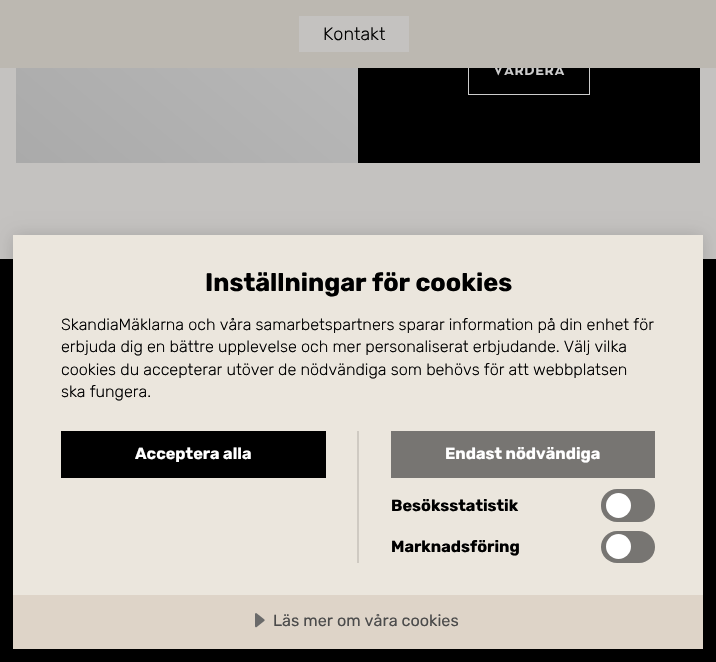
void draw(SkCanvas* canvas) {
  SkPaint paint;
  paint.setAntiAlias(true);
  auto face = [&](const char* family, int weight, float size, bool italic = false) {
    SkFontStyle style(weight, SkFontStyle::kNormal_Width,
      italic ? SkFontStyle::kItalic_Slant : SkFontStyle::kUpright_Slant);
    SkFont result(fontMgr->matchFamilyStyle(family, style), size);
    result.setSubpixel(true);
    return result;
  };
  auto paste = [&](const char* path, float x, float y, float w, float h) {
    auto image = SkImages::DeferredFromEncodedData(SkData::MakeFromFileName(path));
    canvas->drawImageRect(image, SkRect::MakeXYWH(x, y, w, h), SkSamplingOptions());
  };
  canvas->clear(0xffc4c2c0);
  {
    const SkColor colors[] = {0xffcacaca, 0xffaaaaaa};
    const float stops[] = {0, 1};
    const SkPoint ends[] = {{407, -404}, {-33, 122}};
    paint.setShader(SkGradientShader::MakeLinear(ends, colors, stops, 2, SkTileMode::kClamp));
    paint.setAlpha(255);
  }
  canvas->drawRect(SkRect::MakeXYWH(16, 68, 342, 95), paint);
  paint.setShader(nullptr);
  paint.setColor(0xff000000);
  canvas->drawRect(SkRect::MakeXYWH(358, 68, 342, 95), paint);
  paint.setStroke(true);
  paint.setStrokeWidth(1);
  paint.setColor(0xffcccccc);
  canvas->drawRect(SkRect::MakeXYWH(468.5f, 45.5f, 121, 49), paint);
  paint.setStroke(false);
  paint.setColor(0xff000000);
  canvas->drawRect(SkRect::MakeXYWH(0, 259, 716, 403), paint);
  paint.setColor(0x26000000);
  paint.setMaskFilter(SkMaskFilter::MakeBlur(kNormal_SkBlurStyle, 8));
  canvas->drawRect(SkRect::MakeXYWH(13, 235, 690, 414), paint);
  paint.setMaskFilter(nullptr);
  {
    const struct { float x, y, w, h; SkColor color; } items[] = {
      {13, 235, 690, 360, 0xffebe6dd},
      {357, 431, 2, 132, 0xffcfcac2},
      {61, 431, 265, 47, 0xff000000},
      {391, 431, 264, 47, 0xff777572},
    };
    for (auto [x, y, w, h, color] : items) {
      paint.setColor(color);
      canvas->drawRect(SkRect::MakeXYWH(x, y, w, h), paint);
    }
  }
  canvas->drawRoundRect(SkRect::MakeXYWH(601, 489, 54, 33), 16, 16, paint);
  paint.setColor(0xffffffff);
  canvas->drawCircle(618.5f, 505.5f, 12.5f, paint);
  paint.setColor(0xff777572);
  canvas->drawRoundRect(SkRect::MakeXYWH(601, 531, 54, 32), 16, 16, paint);
  paint.setColor(0xffffffff);
  canvas->drawCircle(618.5f, 546.5f, 12.5f, paint);
  paint.setColor(0xffded4c8);
  canvas->drawRect(SkRect::MakeXYWH(13, 595, 690, 54), paint);
  paste("img/1.png", 255, 613, 10, 15);
  auto f0 = face("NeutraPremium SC", 500, 20);
  paint.setColor(0xffcccccc);
  canvas->drawString("Värdera", 493, 75, f0, paint);
  paint.setColor(0xffbcb8b1);
  canvas->drawRect(SkRect::MakeXYWH(0, 0, 716, 68), paint);
  paint.setColor(0xffc4c2c0);
  canvas->drawRect(SkRect::MakeXYWH(299, 16, 110, 36), paint);
  auto f1 = face("Rubik", 300, 18);
  paint.setColor(0xff000000);
  canvas->drawString("Kontakt", 323, 40, f1, paint);
  auto f2 = face("Rubik", 700, 25.25f);
  canvas->drawString("Inställningar för cookies", 205, 291, f2, paint);
  auto f3 = face("Rubik", 300, 16.2f);
  {
    const struct { const char* s; float x, y; } items[] = {
      {"SkandiaMäklarna och våra samarbetspartners sparar information på din enhet för", 61, 330},
      {"erbjuda dig en bättre upplevelse och mer personaliserat erbjudande. Välj vilka", 61, 352},
      {"cookies du accepterar utöver de nödvändiga som behövs för att webbplatsen", 61, 375},
      {"ska fungera.", 61, 397},
    };
    for (auto [s, x, y] : items) {
      canvas->drawString(s, x, y, f3, paint);
    }
  }
  auto f4 = face("Rubik", 700, 16.2f);
  paint.setColor(0xffffffff);
  canvas->drawString("Acceptera alla", 135, 459, f4, paint);
  canvas->drawString("Endast nödvändiga", 445, 459, f4, paint);
  paint.setColor(0xff000000);
  canvas->drawString("Besöksstatistik", 391, 511, f4, paint);
  canvas->drawString("Marknadsföring", 391, 552, f4, paint);
  auto f5 = face("Rubik", 400, 16.2f);
  paint.setColor(0xff4b4b4b);
  canvas->drawString("Läs mer om våra cookies", 273, 626, f5, paint);
}
